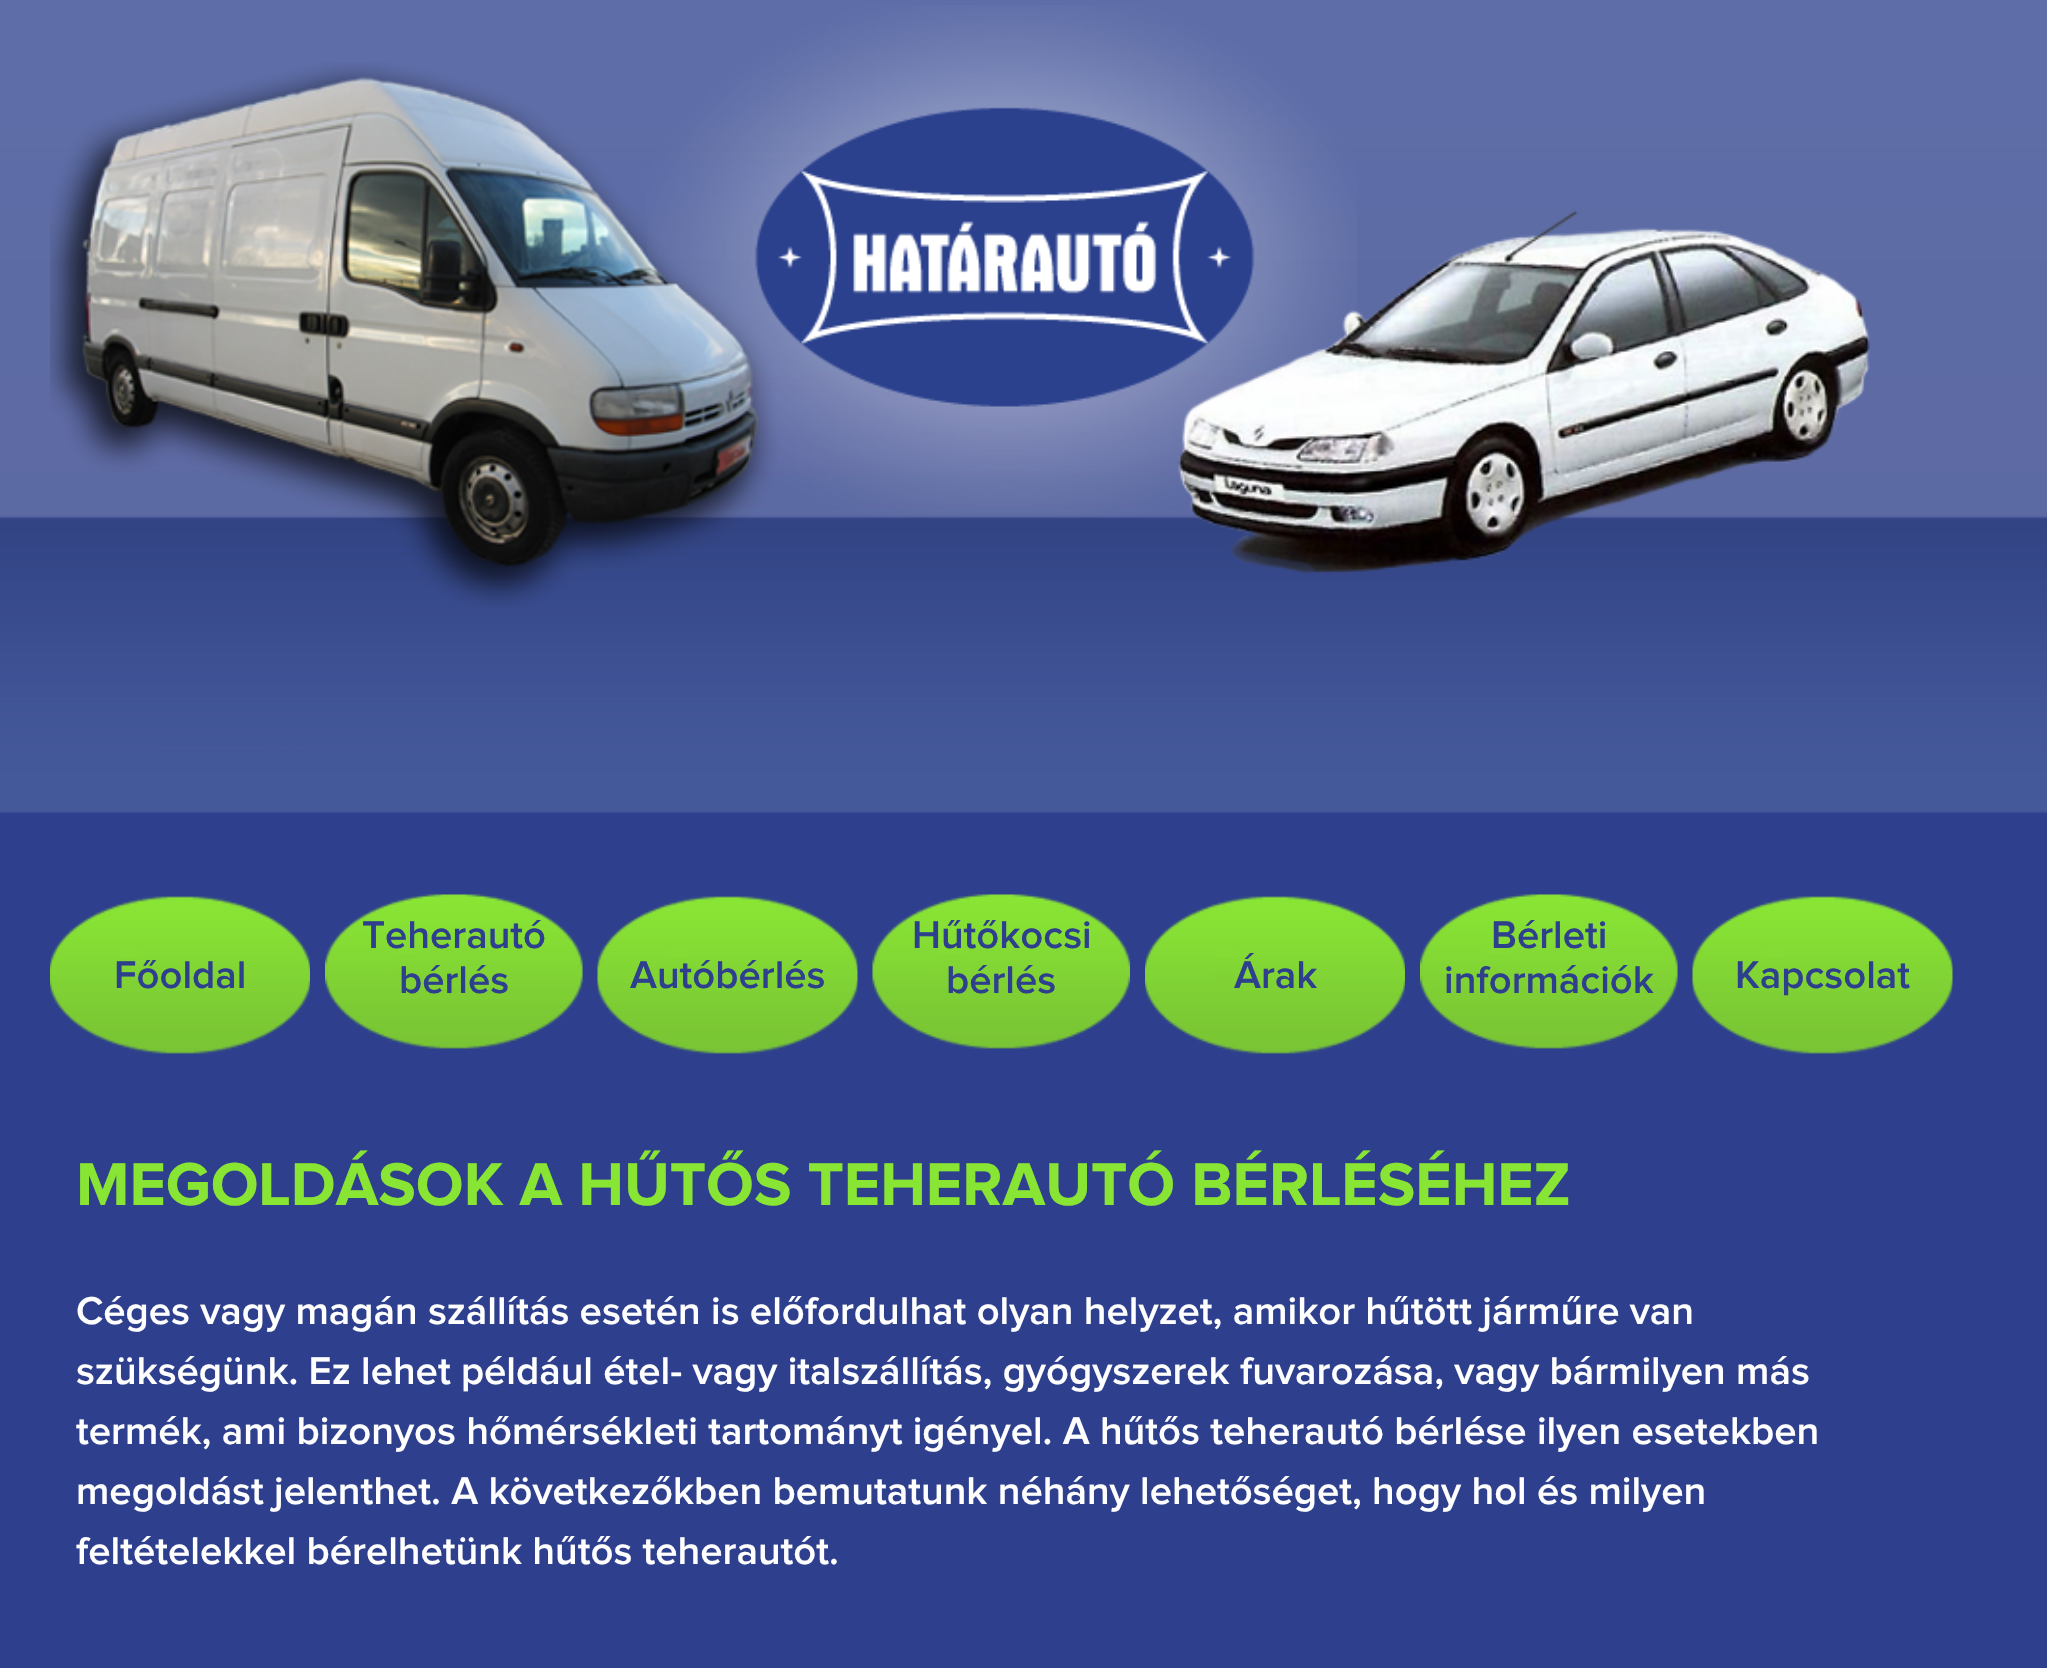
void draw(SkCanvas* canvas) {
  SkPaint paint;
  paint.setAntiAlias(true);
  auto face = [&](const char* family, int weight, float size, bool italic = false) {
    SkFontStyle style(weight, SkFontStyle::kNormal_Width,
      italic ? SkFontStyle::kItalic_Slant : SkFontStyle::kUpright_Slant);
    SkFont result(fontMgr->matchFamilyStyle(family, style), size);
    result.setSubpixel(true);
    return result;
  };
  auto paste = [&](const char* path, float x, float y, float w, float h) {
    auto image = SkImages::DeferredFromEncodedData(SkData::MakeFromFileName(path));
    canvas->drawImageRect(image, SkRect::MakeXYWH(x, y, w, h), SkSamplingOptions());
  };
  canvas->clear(0xff2e408d);
  paste("img/1.png", 0, 0, 2047, 813);
  paste("img/3.png", 50, 62, 1820, 546);
  paste("img/2.png", 647, 5, 710, 512);
  paste("img/4.png", 50, 896, 260, 158);
  paste("img/5.png", 325, 894, 258, 155);
  paste("img/6.png", 597, 896, 261, 158);
  paste("img/7.png", 872, 894, 258, 155);
  paste("img/4.png", 1145, 896, 260, 158);
  paste("img/5.png", 1420, 894, 258, 155);
  paste("img/6.png", 1692, 896, 261, 158);
  auto f0 = face("Proxima Nova", 600, 40);
  paint.setColor(0xff2e408d);
  {
    const struct { const char* s; float x, y; } items[] = {
      {"Főoldal", 114, 988},
      {"Teherautó", 362, 948},
      {"bérlés", 399, 993},
      {"Autóbérlés", 630, 988},
      {"Hűtőkocsi", 912, 948},
      {"bérlés", 946, 993},
      {"Árak", 1234, 988},
      {"Bérleti", 1491, 948},
      {"információk", 1444, 993},
      {"Kapcsolat", 1735, 988},
    };
    for (auto [s, x, y] : items) {
      canvas->drawString(s, x, y, f0, paint);
    }
  }
  auto f1 = face("Proxima Nova", 700, 62.5f);
  paint.setColor(0xff89e534);
  canvas->drawString("MEGOLDÁSOK A HŰTŐS TEHERAUTÓ BÉRLÉSÉHEZ", 76, 1205, f1, paint);
  paint.setColor(0xffffffff);
  {
    const struct { const char* s; float x, y; } items[] = {
      {"Céges vagy magán szállítás esetén is előfordulhat olyan helyzet, amikor hűtött járműre van", 76, 1324},
      {"szükségünk. Ez lehet például étel- vagy italszállítás, gyógyszerek fuvarozása, vagy bármilyen más", 76, 1384},
      {"termék, ami bizonyos hőmérsékleti tartományt igényel. A hűtős teherautó bérlése ilyen esetekben", 76, 1444},
      {"megoldást jelenthet. A következőkben bemutatunk néhány lehetőséget, hogy hol és milyen", 76, 1504},
      {"feltételekkel bérelhetünk hűtős teherautót.", 76, 1564},
    };
    for (auto [s, x, y] : items) {
      canvas->drawString(s, x, y, f0, paint);
    }
  }
}
